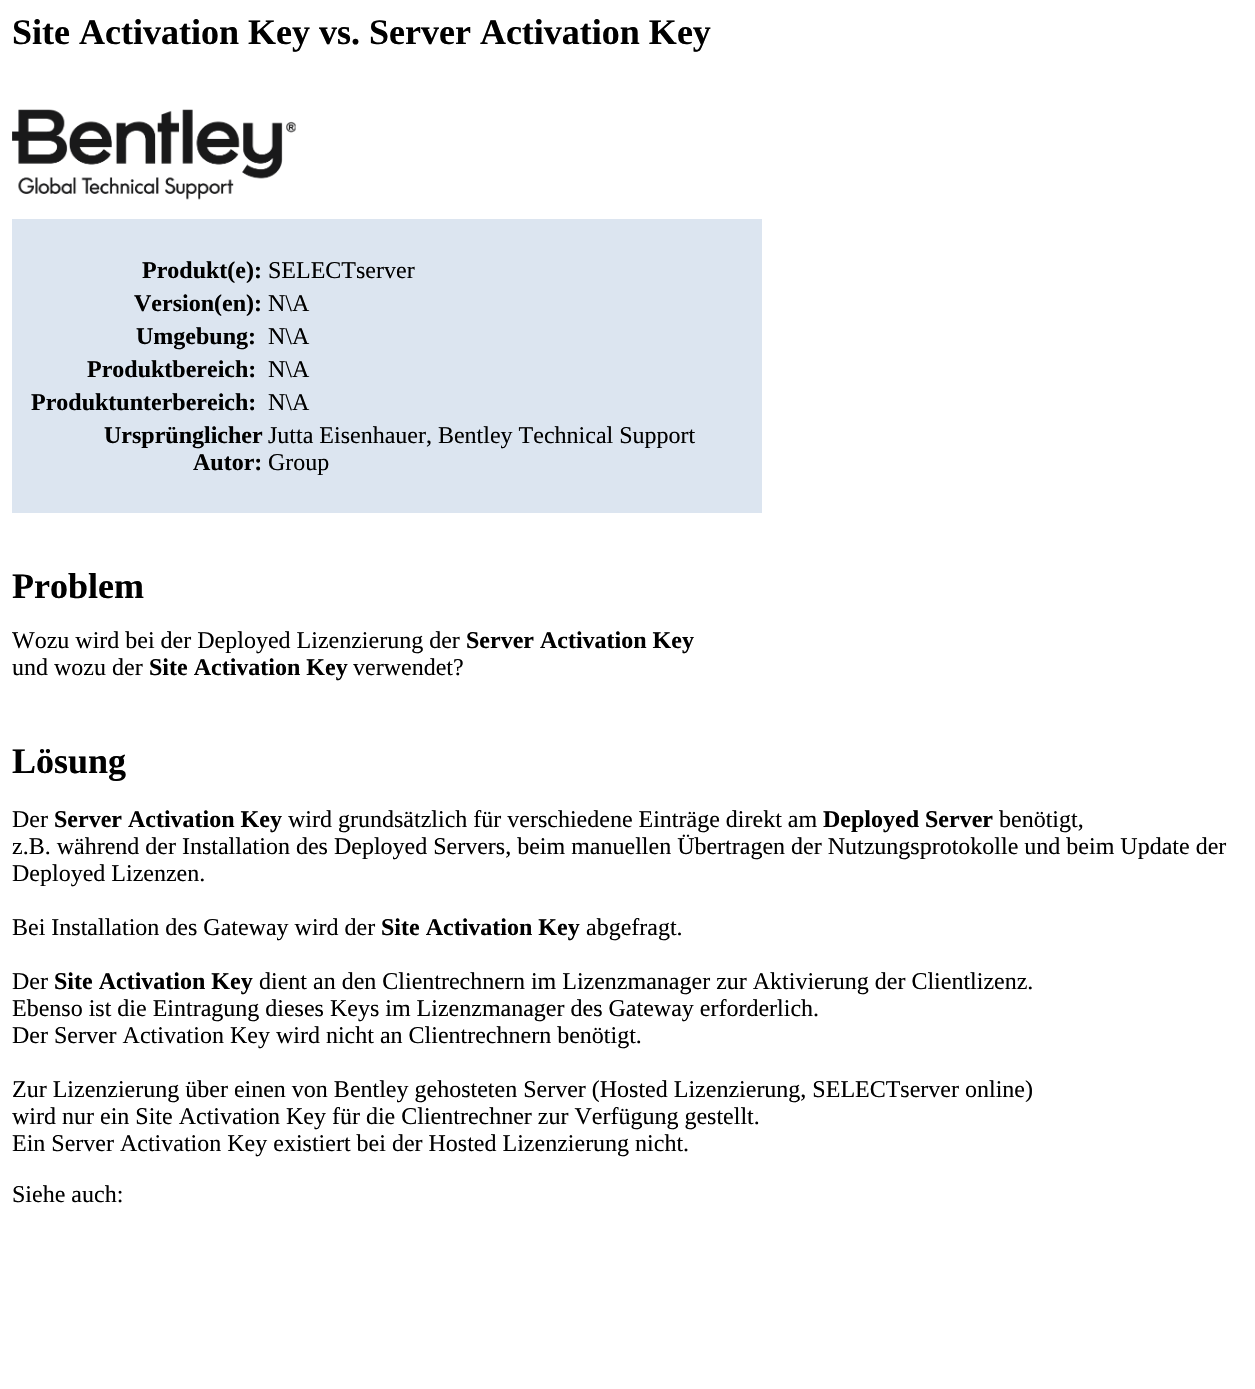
void draw(SkCanvas* canvas) {
  SkPaint paint;
  paint.setAntiAlias(true);
  auto face = [&](const char* family, int weight, float size, bool italic = false) {
    SkFontStyle style(weight, SkFontStyle::kNormal_Width,
      italic ? SkFontStyle::kItalic_Slant : SkFontStyle::kUpright_Slant);
    SkFont result(fontMgr->matchFamilyStyle(family, style), size);
    result.setSubpixel(true);
    return result;
  };
  auto paste = [&](const char* path, float x, float y, float w, float h) {
    auto image = SkImages::DeferredFromEncodedData(SkData::MakeFromFileName(path));
    canvas->drawImageRect(image, SkRect::MakeXYWH(x, y, w, h), SkSamplingOptions());
  };
  canvas->clear(0xffffffff);
  paste("img/1.png", 12, 109, 284, 91);
  paint.setColor(0xffdce5f0);
  canvas->drawRect(SkRect::MakeXYWH(12, 219, 750, 294), paint);
  auto f0 = face("Liberation Serif", 700, 36);
  paint.setColor(0xff000000);
  canvas->drawString("Site Activation Key vs. Server Activation Key", 12, 44, f0, paint);
  auto f1 = face("Liberation Serif", 700, 24);
  canvas->drawString("Produkt(e):", 142, 278, f1, paint);
  auto f2 = face("Liberation Serif", 400, 24);
  canvas->drawString("SELECTserver", 268, 278, f2, paint);
  canvas->drawString("Version(en):", 134, 311, f1, paint);
  canvas->drawString("N\\A", 268, 311, f2, paint);
  canvas->drawString("Umgebung:", 136, 344, f1, paint);
  canvas->drawString("N\\A", 268, 344, f2, paint);
  canvas->drawString("Produktbereich:", 87, 377, f1, paint);
  canvas->drawString("N\\A", 268, 377, f2, paint);
  canvas->drawString("Produktunterbereich:", 31, 410, f1, paint);
  canvas->drawString("N\\A", 268, 410, f2, paint);
  canvas->drawString("Ursprünglicher", 104, 443, f1, paint);
  canvas->drawString("Autor:", 193, 470, f1, paint);
  canvas->drawString("Jutta Eisenhauer, Bentley Technical Support", 268, 443, f2, paint);
  canvas->drawString("Group", 268, 470, f2, paint);
  canvas->drawString("Problem", 12, 598, f0, paint);
  canvas->drawString("Wozu wird bei der Deployed Lizenzierung der", 12, 648, f2, paint);
  canvas->drawString("Server Activation Key", 466, 648, f1, paint);
  canvas->drawString("und wozu der", 12, 675, f2, paint);
  canvas->drawString("Site Activation Key", 149, 675, f1, paint);
  canvas->drawString("verwendet?", 353, 675, f2, paint);
  canvas->drawString("Lösung", 12, 773, f0, paint);
  canvas->drawString("Der", 12, 827, f2, paint);
  canvas->drawString("Server Activation Key", 54, 827, f1, paint);
  canvas->drawString("wird grundsätzlich für verschiedene Einträge direkt am", 288, 827, f2, paint);
  canvas->drawString("Deployed Server", 823, 827, f1, paint);
  {
    const struct { const char* s; float x, y; } items[] = {
      {"benötigt,", 999, 827},
      {"z.B. während der Installation des Deployed Servers, beim manuellen Übertragen der Nutzungsprotokolle und beim Update der", 12, 854},
      {"Deployed Lizenzen.", 12, 881},
      {"Bei Installation des Gateway wird der", 12, 935},
    };
    for (auto [s, x, y] : items) {
      canvas->drawString(s, x, y, f2, paint);
    }
  }
  canvas->drawString("Site Activation Key", 381, 935, f1, paint);
  canvas->drawString("abgefragt.", 586, 935, f2, paint);
  canvas->drawString("Der", 12, 989, f2, paint);
  canvas->drawString("Site Activation Key", 54, 989, f1, paint);
  {
    const struct { const char* s; float x, y; } items[] = {
      {"dient an den Clientrechnern im Lizenzmanager zur Aktivierung der Clientlizenz.", 259, 989},
      {"Ebenso ist die Eintragung dieses Keys im Lizenzmanager des Gateway erforderlich.", 12, 1016},
      {"Der Server Activation Key wird nicht an Clientrechnern benötigt.", 12, 1043},
      {"Zur Lizenzierung über einen von Bentley gehosteten Server (Hosted Lizenzierung, SELECTserver online)", 12, 1097},
      {"wird nur ein Site Activation Key für die Clientrechner zur Verfügung gestellt.", 12, 1124},
      {"Ein Server Activation Key existiert bei der Hosted Lizenzierung nicht.", 12, 1151},
      {"Siehe auch:", 12, 1202},
    };
    for (auto [s, x, y] : items) {
      canvas->drawString(s, x, y, f2, paint);
    }
  }
}
